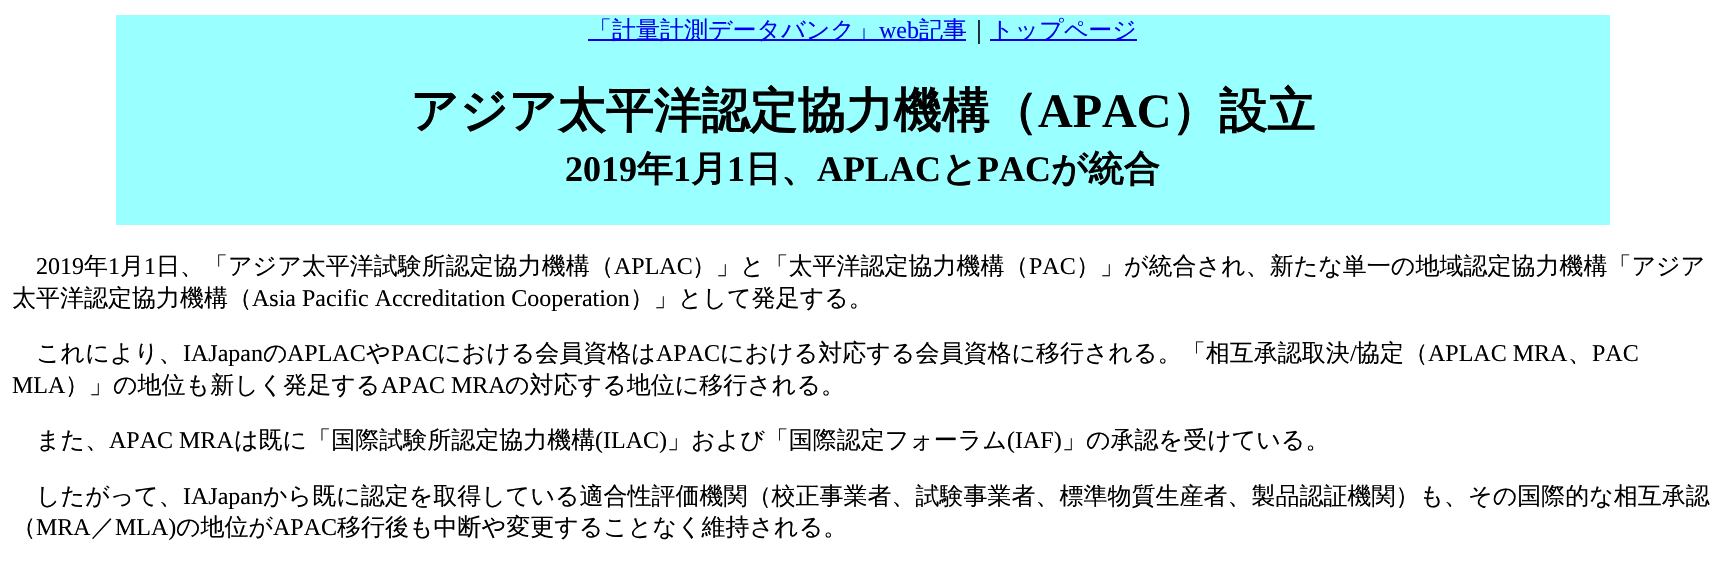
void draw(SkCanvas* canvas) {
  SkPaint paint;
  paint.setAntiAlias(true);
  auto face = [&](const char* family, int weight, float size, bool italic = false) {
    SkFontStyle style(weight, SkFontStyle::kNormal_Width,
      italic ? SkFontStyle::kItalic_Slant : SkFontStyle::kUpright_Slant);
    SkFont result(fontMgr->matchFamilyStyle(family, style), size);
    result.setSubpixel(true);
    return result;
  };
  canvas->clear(0xffffffff);
  {
    const struct { float x, y, w, h; SkColor color; } items[] = {
      {116, 15, 1494, 210, 0xff99ffff},
      {588, 39, 378, 2, 0xff0000ee},
      {990, 39, 147, 2, 0xff0000ee},
    };
    for (auto [x, y, w, h, color] : items) {
      paint.setColor(color);
      canvas->drawRect(SkRect::MakeXYWH(x, y, w, h), paint);
    }
  }
  auto f0 = face("WenQuanYi Zen Hei", 500, 24);
  canvas->drawString("「計量計測データバンク」", 588, 38, f0, paint);
  auto f1 = face("Liberation Serif", 400, 24);
  canvas->drawString("web", 879, 38, f1, paint);
  canvas->drawString("記事", 919, 38, f0, paint);
  paint.setColor(0xff000000);
  canvas->drawString("｜", 967, 38, f0, paint);
  paint.setColor(0xff0000ee);
  canvas->drawString("トップページ", 990, 38, f0, paint);
  auto f2 = face("WenQuanYi Zen Hei", 700, 48);
  paint.setColor(0xff000000);
  canvas->drawString("アジア太平洋認定協力機構（", 410, 127, f2, paint);
  auto f3 = face("Liberation Serif", 700, 48);
  canvas->drawString("APAC", 1038, 127, f3, paint);
  canvas->drawString("）設立", 1171, 127, f2, paint);
  auto f4 = face("Liberation Serif", 700, 36);
  canvas->drawString("2019", 565, 181, f4, paint);
  auto f5 = face("WenQuanYi Zen Hei", 700, 36);
  canvas->drawString("年", 637, 181, f5, paint);
  canvas->drawString("1", 673, 181, f4, paint);
  canvas->drawString("月", 691, 181, f5, paint);
  canvas->drawString("1", 727, 181, f4, paint);
  canvas->drawString("日、", 745, 181, f5, paint);
  canvas->drawString("APLAC", 817, 181, f4, paint);
  canvas->drawString("と", 941, 181, f5, paint);
  canvas->drawString("PAC", 977, 181, f4, paint);
  canvas->drawString("が統合", 1051, 181, f5, paint);
  canvas->drawString("2019", 36, 274, f1, paint);
  canvas->drawString("年", 84, 274, f0, paint);
  canvas->drawString("1", 108, 274, f1, paint);
  canvas->drawString("月", 120, 274, f0, paint);
  canvas->drawString("1", 144, 274, f1, paint);
  canvas->drawString("日、「アジア太平洋試験所認定協力機構（", 156, 274, f0, paint);
  canvas->drawString("APLAC", 614, 274, f1, paint);
  canvas->drawString("）」と「太平洋認定協力機構（", 692, 274, f0, paint);
  canvas->drawString("PAC", 1029, 274, f1, paint);
  canvas->drawString("）」が統合され、新たな単一の地域認定協力機構「アジア", 1076, 274, f0, paint);
  canvas->drawString("太平洋認定協力機構（", 12, 306, f0, paint);
  canvas->drawString("Asia Pacific Accreditation Cooperation", 252, 306, f1, paint);
  canvas->drawString("）」として発足する。", 630, 306, f0, paint);
  canvas->drawString("これにより、", 36, 361, f0, paint);
  canvas->drawString("IAJapan", 183, 361, f1, paint);
  canvas->drawString("の", 263, 361, f0, paint);
  canvas->drawString("APLAC", 287, 361, f1, paint);
  canvas->drawString("や", 366, 361, f0, paint);
  canvas->drawString("PAC", 391, 361, f1, paint);
  canvas->drawString("における会員資格は", 437, 361, f0, paint);
  canvas->drawString("APAC", 656, 361, f1, paint);
  canvas->drawString("における対応する会員資格に移行される。「相互承認取決", 720, 361, f0, paint);
  canvas->drawString("/", 1350, 361, f1, paint);
  canvas->drawString("協定（", 1356, 361, f0, paint);
  canvas->drawString("APLAC MRA", 1428, 361, f1, paint);
  canvas->drawString("、", 1568, 361, f0, paint);
  canvas->drawString("PAC", 1592, 361, f1, paint);
  canvas->drawString("MLA", 12, 393, f1, paint);
  canvas->drawString("）」の地位も新しく発足する", 65, 393, f0, paint);
  canvas->drawString("APAC MRA", 381, 393, f1, paint);
  canvas->drawString("の対応する地位に移行される。", 505, 393, f0, paint);
  canvas->drawString("また、", 36, 448, f0, paint);
  canvas->drawString("APAC MRA", 109, 448, f1, paint);
  canvas->drawString("は既に「国際試験所認定協力機構", 234, 448, f0, paint);
  canvas->drawString("(ILAC)", 595, 448, f1, paint);
  canvas->drawString("」および「国際認定フォーラム", 667, 448, f0, paint);
  canvas->drawString("(IAF)", 1007, 448, f1, paint);
  canvas->drawString("」の承認を受けている。", 1062, 448, f0, paint);
  canvas->drawString("したがって、", 36, 504, f0, paint);
  canvas->drawString("IAJapan", 183, 504, f1, paint);
  canvas->drawString("から既に認定を取得している適合性評価機関（校正事業者、試験事業者、標準物質生産者、製品認証機関）も、その国際的な相互承認", 263, 504, f0, paint);
  canvas->drawString("（", 12, 535, f0, paint);
  canvas->drawString("MRA", 36, 535, f1, paint);
  canvas->drawString("／", 91, 535, f0, paint);
  canvas->drawString("MLA)", 115, 535, f1, paint);
  canvas->drawString("の地位が", 176, 535, f0, paint);
  canvas->drawString("APAC", 273, 535, f1, paint);
  canvas->drawString("移行後も中断や変更することなく維持される。", 337, 535, f0, paint);
}
